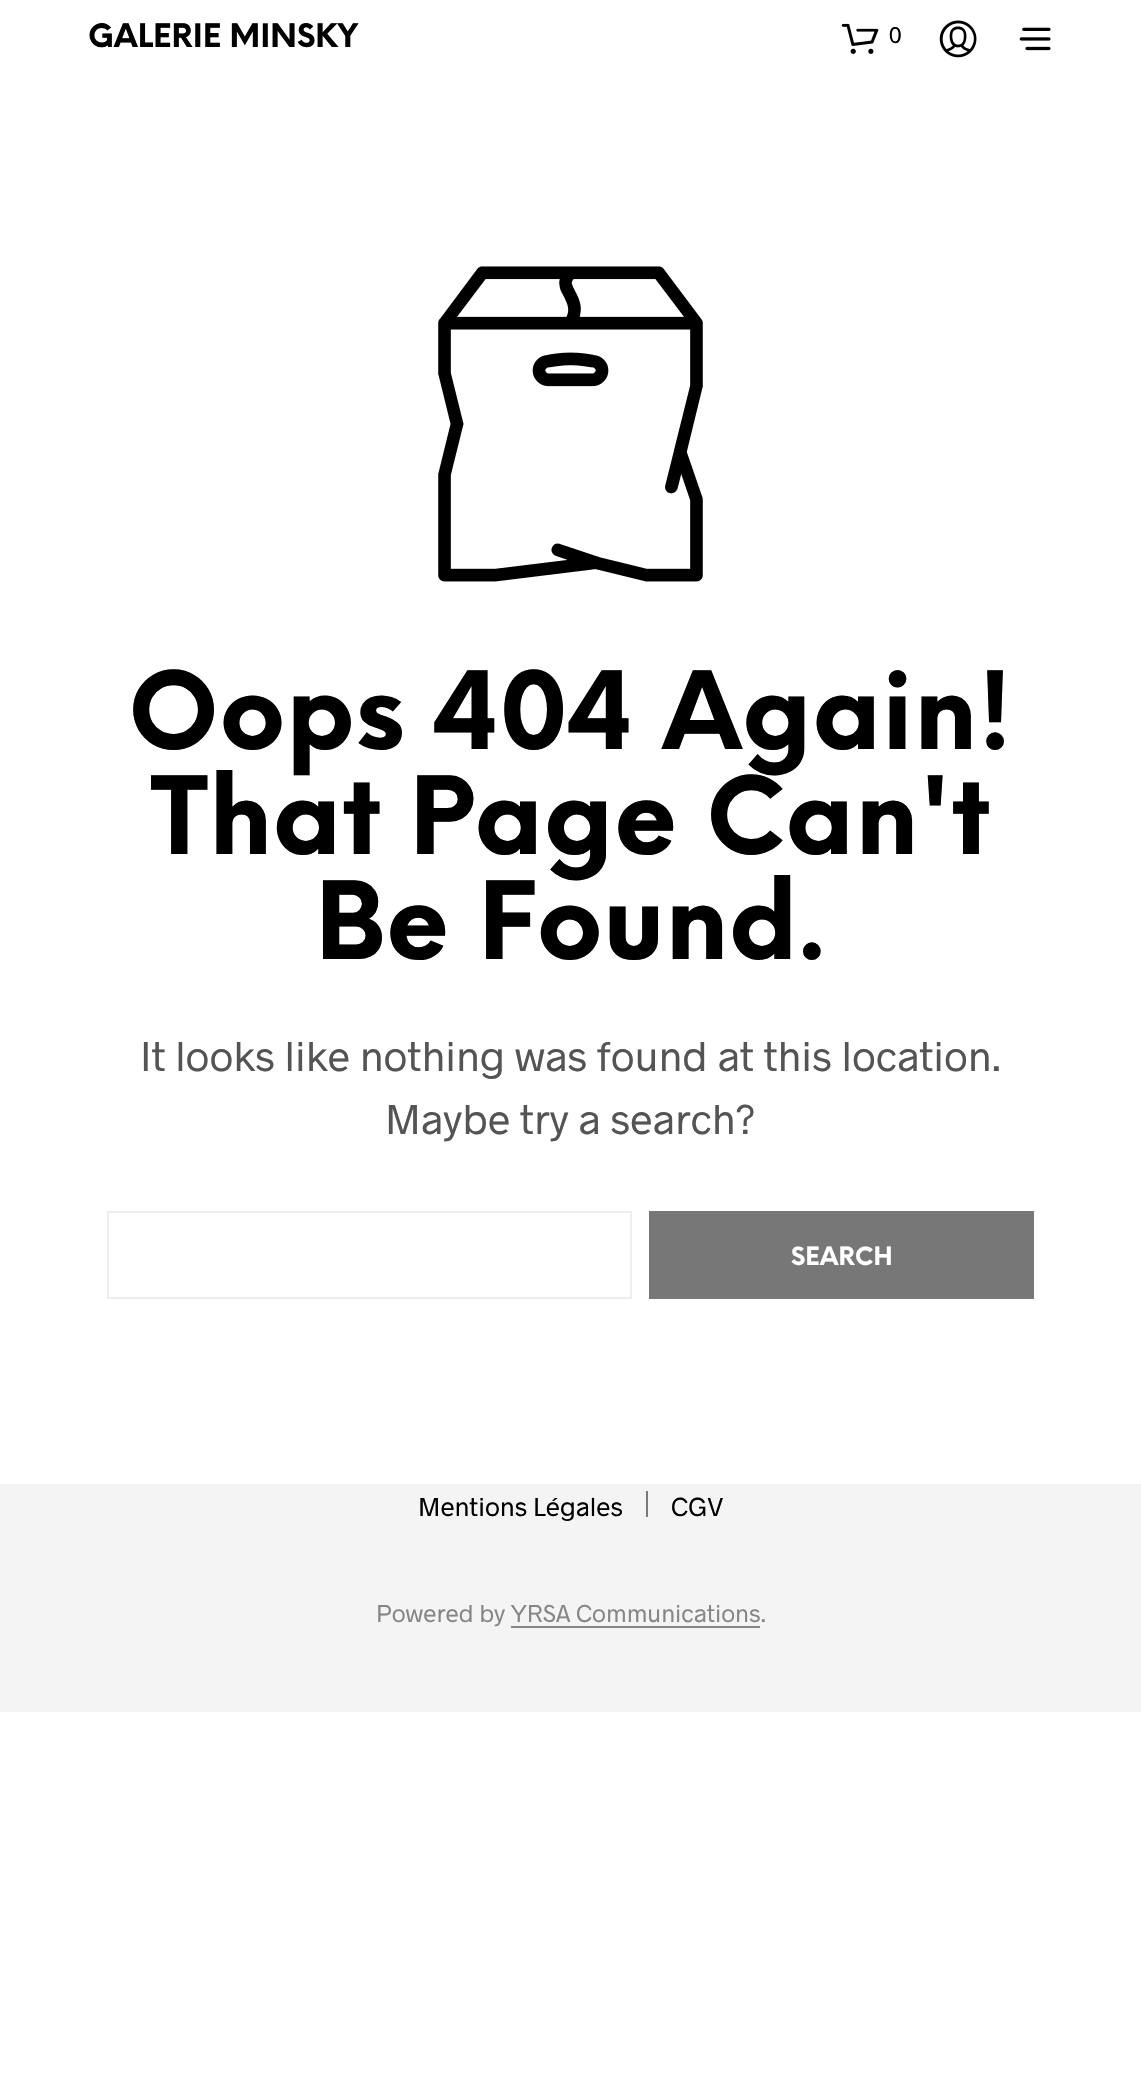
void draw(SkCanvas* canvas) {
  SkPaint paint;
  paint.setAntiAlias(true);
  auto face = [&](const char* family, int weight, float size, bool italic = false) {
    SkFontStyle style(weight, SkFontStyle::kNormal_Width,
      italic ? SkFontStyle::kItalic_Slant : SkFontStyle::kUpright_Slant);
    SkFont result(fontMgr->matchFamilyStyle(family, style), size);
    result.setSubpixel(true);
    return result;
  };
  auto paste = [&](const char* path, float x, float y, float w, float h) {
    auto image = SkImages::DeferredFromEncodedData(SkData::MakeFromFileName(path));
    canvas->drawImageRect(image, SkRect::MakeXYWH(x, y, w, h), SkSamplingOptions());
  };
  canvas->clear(0xffffffff);
  paste("img/1.png", 841, 23, 38, 31);
  paste("img/2.png", 939, 20, 38, 38);
  paste("img/3.png", 1019, 27, 32, 24);
  paste("img/4.png", 438, 266, 265, 316);
  paint.setStroke(true);
  paint.setStrokeWidth(2);
  paint.setColor(0xffeeeeee);
  canvas->drawRect(SkRect::MakeXYWH(108, 1212, 523, 86), paint);
  paint.setStroke(false);
  {
    const struct { float x, y, w, h; SkColor color; } items[] = {
      {649, 1211, 385, 88, 0xff777777},
      {0, 1484, 1141, 228, 0xfff4f4f4},
      {646, 1491, 2, 26, 0xff7a7a7a},
      {511, 1626, 249, 2, 0xff868686},
    };
    for (auto [x, y, w, h, color] : items) {
      paint.setColor(color);
      canvas->drawRect(SkRect::MakeXYWH(x, y, w, h), paint);
    }
  }
  auto f0 = face("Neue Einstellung", 700, 31.5f);
  paint.setColor(0xff000000);
  canvas->drawString("GALERIE MINSKY", 88, 47, f0, paint);
  auto f1 = face("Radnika", 400, 23);
  canvas->drawString("0", 889, 43, f1, paint);
  auto f2 = face("Neue Einstellung", 700, 105);
  {
    const struct { const char* s; float x, y; } items[] = {
      {"Oops 404 Again!", 128, 749},
      {"That Page Can't", 150, 854},
      {"Be Found.", 315, 959},
    };
    for (auto [s, x, y] : items) {
      canvas->drawString(s, x, y, f2, paint);
    }
  }
  auto f3 = face("Radnika", 400, 42);
  paint.setColor(0xff545454);
  canvas->drawString("It looks like nothing was found at this location.", 140, 1071, f3, paint);
  canvas->drawString("Maybe try a search?", 385, 1134, f3, paint);
  auto f4 = face("Neue Einstellung", 700, 24.5f);
  paint.setColor(0xffffffff);
  canvas->drawString("SEARCH", 791, 1265, f4, paint);
  auto f5 = face("Radnika", 400, 26.25f);
  paint.setColor(0xff000000);
  canvas->drawString("Mentions Légales", 418, 1516, f5, paint);
  canvas->drawString("CGV", 671, 1516, f5, paint);
  auto f6 = face("Radnika", 400, 24.5f);
  paint.setColor(0xff868686);
  canvas->drawString("Powered by YRSA Communications.", 376, 1622, f6, paint);
}
